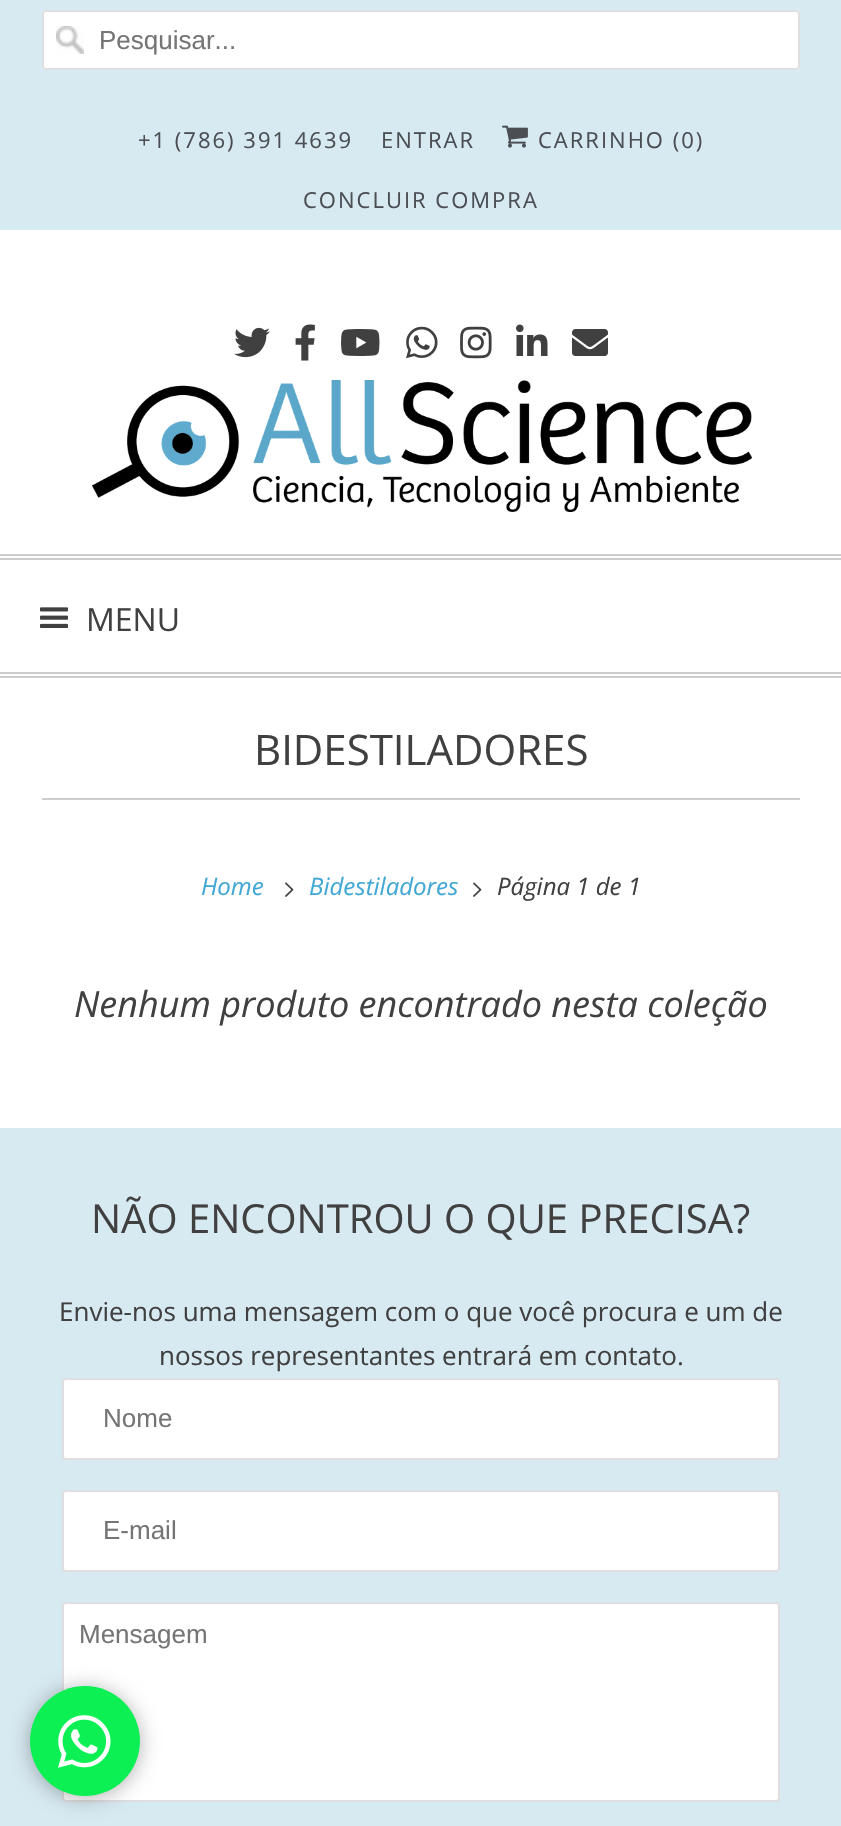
void draw(SkCanvas* canvas) {
  SkPaint paint;
  paint.setAntiAlias(true);
  auto face = [&](const char* family, int weight, float size, bool italic = false) {
    SkFontStyle style(weight, SkFontStyle::kNormal_Width,
      italic ? SkFontStyle::kItalic_Slant : SkFontStyle::kUpright_Slant);
    SkFont result(fontMgr->matchFamilyStyle(family, style), size);
    result.setSubpixel(true);
    return result;
  };
  auto writeSpaced = [&](const char* s, float x, float y, const SkFont& font, const SkPaint& ink, float letter, float word) {
    std::vector<SkGlyphID> glyphs(font.countText(s, strlen(s), SkTextEncoding::kUTF8));
    std::vector<float> xs(glyphs.size());
    font.textToGlyphs(s, strlen(s), SkTextEncoding::kUTF8, glyphs);
    font.getXPos(glyphs, xs, x);
    float extra = 0;
    for (size_t i = 0; i < glyphs.size(); i++) {
      xs[i] += extra;
      extra += letter + word * (glyphs[i] == font.unicharToGlyph(' '));
    }
    canvas->drawTextBlob(SkTextBlob::MakeFromPosHGlyphs(glyphs, xs, y, font), 0, 0, ink);
  };
  auto paste = [&](const char* path, float x, float y, float w, float h) {
    auto image = SkImages::DeferredFromEncodedData(SkData::MakeFromFileName(path));
    canvas->drawImageRect(image, SkRect::MakeXYWH(x, y, w, h), SkSamplingOptions());
  };
  canvas->clear(0xffffffff);
  paint.setColor(0xffd7e9f1);
  canvas->drawRect(SkRect::MakeXYWH(0, 0, 841, 230), paint);
  paint.setColor(0xffffffff);
  canvas->drawRoundRect(SkRect::MakeXYWH(42, 10, 758, 60), 4, 4, paint);
  paste("img/1.png", 56, 26, 28, 28);
  paint.setStroke(true);
  paint.setStrokeWidth(2);
  paint.setColor(0xffdfdfdf);
  canvas->drawRoundRect(SkRect::MakeXYWH(43, 11, 756, 58), 3, 3, paint);
  paste("img/2.png", 502, 125, 26, 23);
  paste("img/3.png", 234, 327, 36, 31);
  paste("img/4.png", 295, 324, 20, 37);
  paste("img/5.png", 341, 329, 39, 27);
  paste("img/6.png", 406, 326, 32, 33);
  paste("img/7.png", 460, 326, 32, 33);
  paste("img/8.png", 516, 324, 32, 32);
  paste("img/9.png", 572, 329, 36, 27);
  paste("img/10.png", 92, 380, 660, 132);
  paint.setStroke(false);
  {
    const struct { float x, y, w, h; SkColor color; } items[] = {
      {0, 554, 841, 2, 0xffcdcdcd},
      {0, 558, 841, 2, 0xffcdcdcd},
      {0, 672, 841, 2, 0xffcdcdcd},
      {0, 676, 841, 2, 0xffcdcdcd},
    };
    for (auto [x, y, w, h, color] : items) {
      paint.setColor(color);
      canvas->drawRect(SkRect::MakeXYWH(x, y, w, h), paint);
    }
  }
  paste("img/11.png", 40, 607, 28, 21);
  canvas->drawRect(SkRect::MakeXYWH(42, 798, 758, 2), paint);
  paste("img/12.png", 285, 882, 9, 15);
  paste("img/12.png", 473, 882, 9, 15);
  paint.setColor(0xffd7e9f1);
  canvas->drawRect(SkRect::MakeXYWH(0, 1128, 841, 698), paint);
  paint.setColor(0xffffffff);
  canvas->drawRoundRect(SkRect::MakeXYWH(63, 1379, 716, 80), 3, 3, paint);
  paint.setStroke(true);
  paint.setColor(0xffdfdfdf);
  canvas->drawRoundRect(SkRect::MakeXYWH(63, 1379, 716, 80), 3, 3, paint);
  paint.setStroke(false);
  paint.setColor(0xffffffff);
  canvas->drawRoundRect(SkRect::MakeXYWH(63, 1491, 716, 80), 3, 3, paint);
  paint.setStroke(true);
  paint.setColor(0xffdfdfdf);
  canvas->drawRoundRect(SkRect::MakeXYWH(63, 1491, 716, 80), 3, 3, paint);
  paint.setStroke(false);
  paint.setColor(0xffffffff);
  canvas->drawRoundRect(SkRect::MakeXYWH(63, 1603, 716, 198), 3, 3, paint);
  paint.setStroke(true);
  paint.setColor(0xffdfdfdf);
  canvas->drawRoundRect(SkRect::MakeXYWH(63, 1603, 716, 198), 3, 3, paint);
  paint.setStroke(false);
  paint.setColor(0x4d000000);
  paint.setMaskFilter(SkMaskFilter::MakeBlur(kNormal_SkBlurStyle, 10));
  canvas->drawRoundRect(SkRect::MakeXYWH(30, 1688, 110, 110), 55, 55, paint);
  paint.setMaskFilter(nullptr);
  paint.setColor(0xff0df053);
  canvas->drawCircle(85, 1741, 55, paint);
  paste("img/13.png", 58, 1715, 53, 53);
  auto f0 = face("Liberation Sans", 400, 26);
  paint.setColor(0xff757575);
  canvas->drawString("Pesquisar...", 99, 49, f0, paint);
  auto f1 = face("Open Sans", 400, 22);
  paint.setColor(0xff4b4f54);
  {
    const struct { const char* s; float x, y; } items[] = {
      {"+1 (786) 391 4639", 138, 148},
      {"ENTRAR", 381, 148},
      {"CARRINHO (0)", 538, 148},
      {"CONCLUIR COMPRA", 303, 208},
    };
    for (auto [s, x, y] : items) {
      writeSpaced(s, x, y, f1, paint, 2, 0);
    }
  }
  auto f2 = face("Open Sans", 400, 32);
  paint.setColor(0xff404040);
  canvas->drawString("MENU", 86, 631, f2, paint);
  auto f3 = face("Open Sans", 400, 42);
  canvas->drawString("BIDESTILADORES", 254, 765, f3, paint);
  auto f4 = face("Open Sans", 400, 24, true);
  paint.setColor(0xff41a8d5);
  canvas->drawString("Home", 201, 895, f4, paint);
  canvas->drawString("Bidestiladores", 309, 895, f4, paint);
  paint.setColor(0xff404040);
  canvas->drawString("Página 1 de 1", 497, 895, f4, paint);
  auto f5 = face("Open Sans", 400, 36, true);
  canvas->drawString("Nenhum produto encontrado nesta coleção", 74, 1017, f5, paint);
  auto f6 = face("Open Sans", 400, 40);
  canvas->drawString("NÃO ENCONTROU O QUE PRECISA?", 91, 1233, f6, paint);
  auto f7 = face("Open Sans", 400, 26);
  canvas->drawString("Envie-nos uma mensagem com o que você procura e um de", 59, 1321, f7, paint);
  canvas->drawString("nossos representantes entrará em contato.", 159, 1365, f7, paint);
  paint.setColor(0xff757575);
  {
    const struct { const char* s; float x, y; } items[] = {
      {"Nome", 103, 1427},
      {"E-mail", 103, 1539},
      {"Mensagem", 79, 1643},
    };
    for (auto [s, x, y] : items) {
      canvas->drawString(s, x, y, f0, paint);
    }
  }
}
